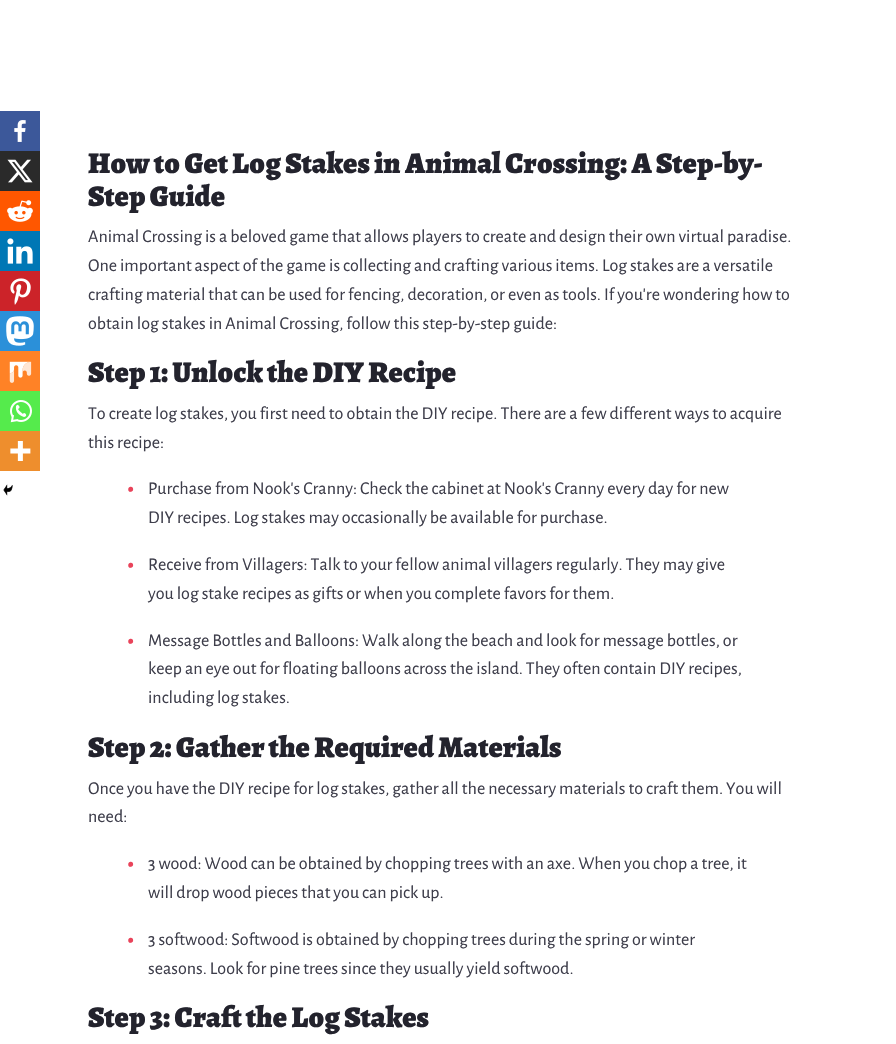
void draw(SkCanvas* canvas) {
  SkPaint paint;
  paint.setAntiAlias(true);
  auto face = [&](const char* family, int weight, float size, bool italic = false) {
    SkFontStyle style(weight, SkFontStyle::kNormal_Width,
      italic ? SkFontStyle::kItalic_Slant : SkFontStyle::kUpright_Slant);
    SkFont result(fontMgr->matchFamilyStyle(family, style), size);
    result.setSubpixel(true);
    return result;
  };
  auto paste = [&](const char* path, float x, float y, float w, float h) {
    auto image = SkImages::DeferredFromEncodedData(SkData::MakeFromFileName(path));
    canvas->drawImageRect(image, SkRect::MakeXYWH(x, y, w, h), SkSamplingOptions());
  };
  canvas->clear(0xffffffff);
  paint.setColor(0xff3c589a);
  canvas->drawRect(SkRect::MakeXYWH(0, 111, 40, 40), paint);
  paste("img/1.png", 14, 120, 12, 22);
  paint.setColor(0xff2a2a2a);
  canvas->drawRect(SkRect::MakeXYWH(0, 151, 40, 40), paint);
  paste("img/2.png", 7, 159, 26, 24);
  paint.setColor(0xffff5700);
  canvas->drawRect(SkRect::MakeXYWH(0, 191, 40, 40), paint);
  paste("img/3.png", 7, 200, 26, 22);
  paint.setColor(0xff0077b5);
  canvas->drawRect(SkRect::MakeXYWH(0, 231, 40, 40), paint);
  paste("img/4.png", 7, 238, 26, 26);
  paint.setColor(0xffcc2329);
  canvas->drawRect(SkRect::MakeXYWH(0, 271, 40, 40), paint);
  paste("img/5.png", 10, 278, 21, 27);
  paint.setColor(0xff2b90d9);
  canvas->drawRect(SkRect::MakeXYWH(0, 311, 40, 40), paint);
  paste("img/6.png", 6, 316, 28, 30);
  paint.setColor(0xffff8226);
  canvas->drawRect(SkRect::MakeXYWH(0, 351, 40, 40), paint);
  paste("img/7.png", 9, 361, 23, 22);
  paint.setColor(0xff55eb4c);
  canvas->drawRect(SkRect::MakeXYWH(0, 391, 40, 40), paint);
  paste("img/8.png", 10, 400, 22, 23);
  paint.setColor(0xffee8e2d);
  canvas->drawRect(SkRect::MakeXYWH(0, 431, 40, 40), paint);
  paste("img/9.png", 10, 441, 21, 20);
  paste("img/10.png", 3, 484, 10, 12);
  auto f0 = face("Alegreya", 900, 30);
  paint.setColor(0xff23232d);
  canvas->drawString("How to Get Log Stakes in Animal Crossing: A Step-by-", 88, 173, f0, paint);
  canvas->drawString("Step Guide", 88, 206, f0, paint);
  auto f1 = face("Alegreya Sans", 400, 18);
  paint.setColor(0xff3e3e4b);
  {
    const struct { const char* s; float x, y; } items[] = {
      {"Animal Crossing is a beloved game that allows players to create and design their own virtual paradise.", 88, 242},
      {"One important aspect of the game is collecting and crafting various items. Log stakes are a versatile", 88, 271},
      {"crafting material that can be used for fencing, decoration, or even as tools. If you're wondering how to", 88, 300},
      {"obtain log stakes in Animal Crossing, follow this step-by-step guide:", 88, 329},
    };
    for (auto [s, x, y] : items) {
      canvas->drawString(s, x, y, f1, paint);
    }
  }
  paint.setColor(0xff23232d);
  canvas->drawString("Step 1: Unlock the DIY Recipe", 88, 382, f0, paint);
  paint.setColor(0xff3e3e4b);
  canvas->drawString("To create log stakes, you first need to obtain the DIY recipe. There are a few different ways to acquire", 88, 419, f1, paint);
  canvas->drawString("this recipe:", 88, 448, f1, paint);
  auto f2 = face("Alegreya Sans", 900, 18);
  paint.setColor(0xffe9435a);
  canvas->drawString("•", 128, 494, f2, paint);
  paint.setColor(0xff3e3e4b);
  canvas->drawString("Purchase from Nook's Cranny: Check the cabinet at Nook's Cranny every day for new", 148, 494, f1, paint);
  canvas->drawString("DIY recipes. Log stakes may occasionally be available for purchase.", 148, 523, f1, paint);
  paint.setColor(0xffe9435a);
  canvas->drawString("•", 128, 570, f2, paint);
  paint.setColor(0xff3e3e4b);
  canvas->drawString("Receive from Villagers: Talk to your fellow animal villagers regularly. They may give", 148, 570, f1, paint);
  canvas->drawString("you log stake recipes as gifts or when you complete favors for them.", 148, 599, f1, paint);
  paint.setColor(0xffe9435a);
  canvas->drawString("•", 128, 646, f2, paint);
  paint.setColor(0xff3e3e4b);
  {
    const struct { const char* s; float x, y; } items[] = {
      {"Message Bottles and Balloons: Walk along the beach and look for message bottles, or", 148, 646},
      {"keep an eye out for floating balloons across the island. They often contain DIY recipes,", 148, 674},
      {"including log stakes.", 148, 703},
    };
    for (auto [s, x, y] : items) {
      canvas->drawString(s, x, y, f1, paint);
    }
  }
  paint.setColor(0xff23232d);
  canvas->drawString("Step 2: Gather the Required Materials", 88, 757, f0, paint);
  paint.setColor(0xff3e3e4b);
  canvas->drawString("Once you have the DIY recipe for log stakes, gather all the necessary materials to craft them. You will", 88, 794, f1, paint);
  canvas->drawString("need:", 88, 822, f1, paint);
  paint.setColor(0xffe9435a);
  canvas->drawString("•", 128, 869, f2, paint);
  paint.setColor(0xff3e3e4b);
  canvas->drawString("3 wood: Wood can be obtained by chopping trees with an axe. When you chop a tree, it", 148, 869, f1, paint);
  canvas->drawString("will drop wood pieces that you can pick up.", 148, 898, f1, paint);
  paint.setColor(0xffe9435a);
  canvas->drawString("•", 128, 945, f2, paint);
  paint.setColor(0xff3e3e4b);
  canvas->drawString("3 softwood: Softwood is obtained by chopping trees during the spring or winter", 148, 945, f1, paint);
  canvas->drawString("seasons. Look for pine trees since they usually yield softwood.", 148, 974, f1, paint);
  paint.setColor(0xff23232d);
  canvas->drawString("Step 3: Craft the Log Stakes", 88, 1027, f0, paint);
}
